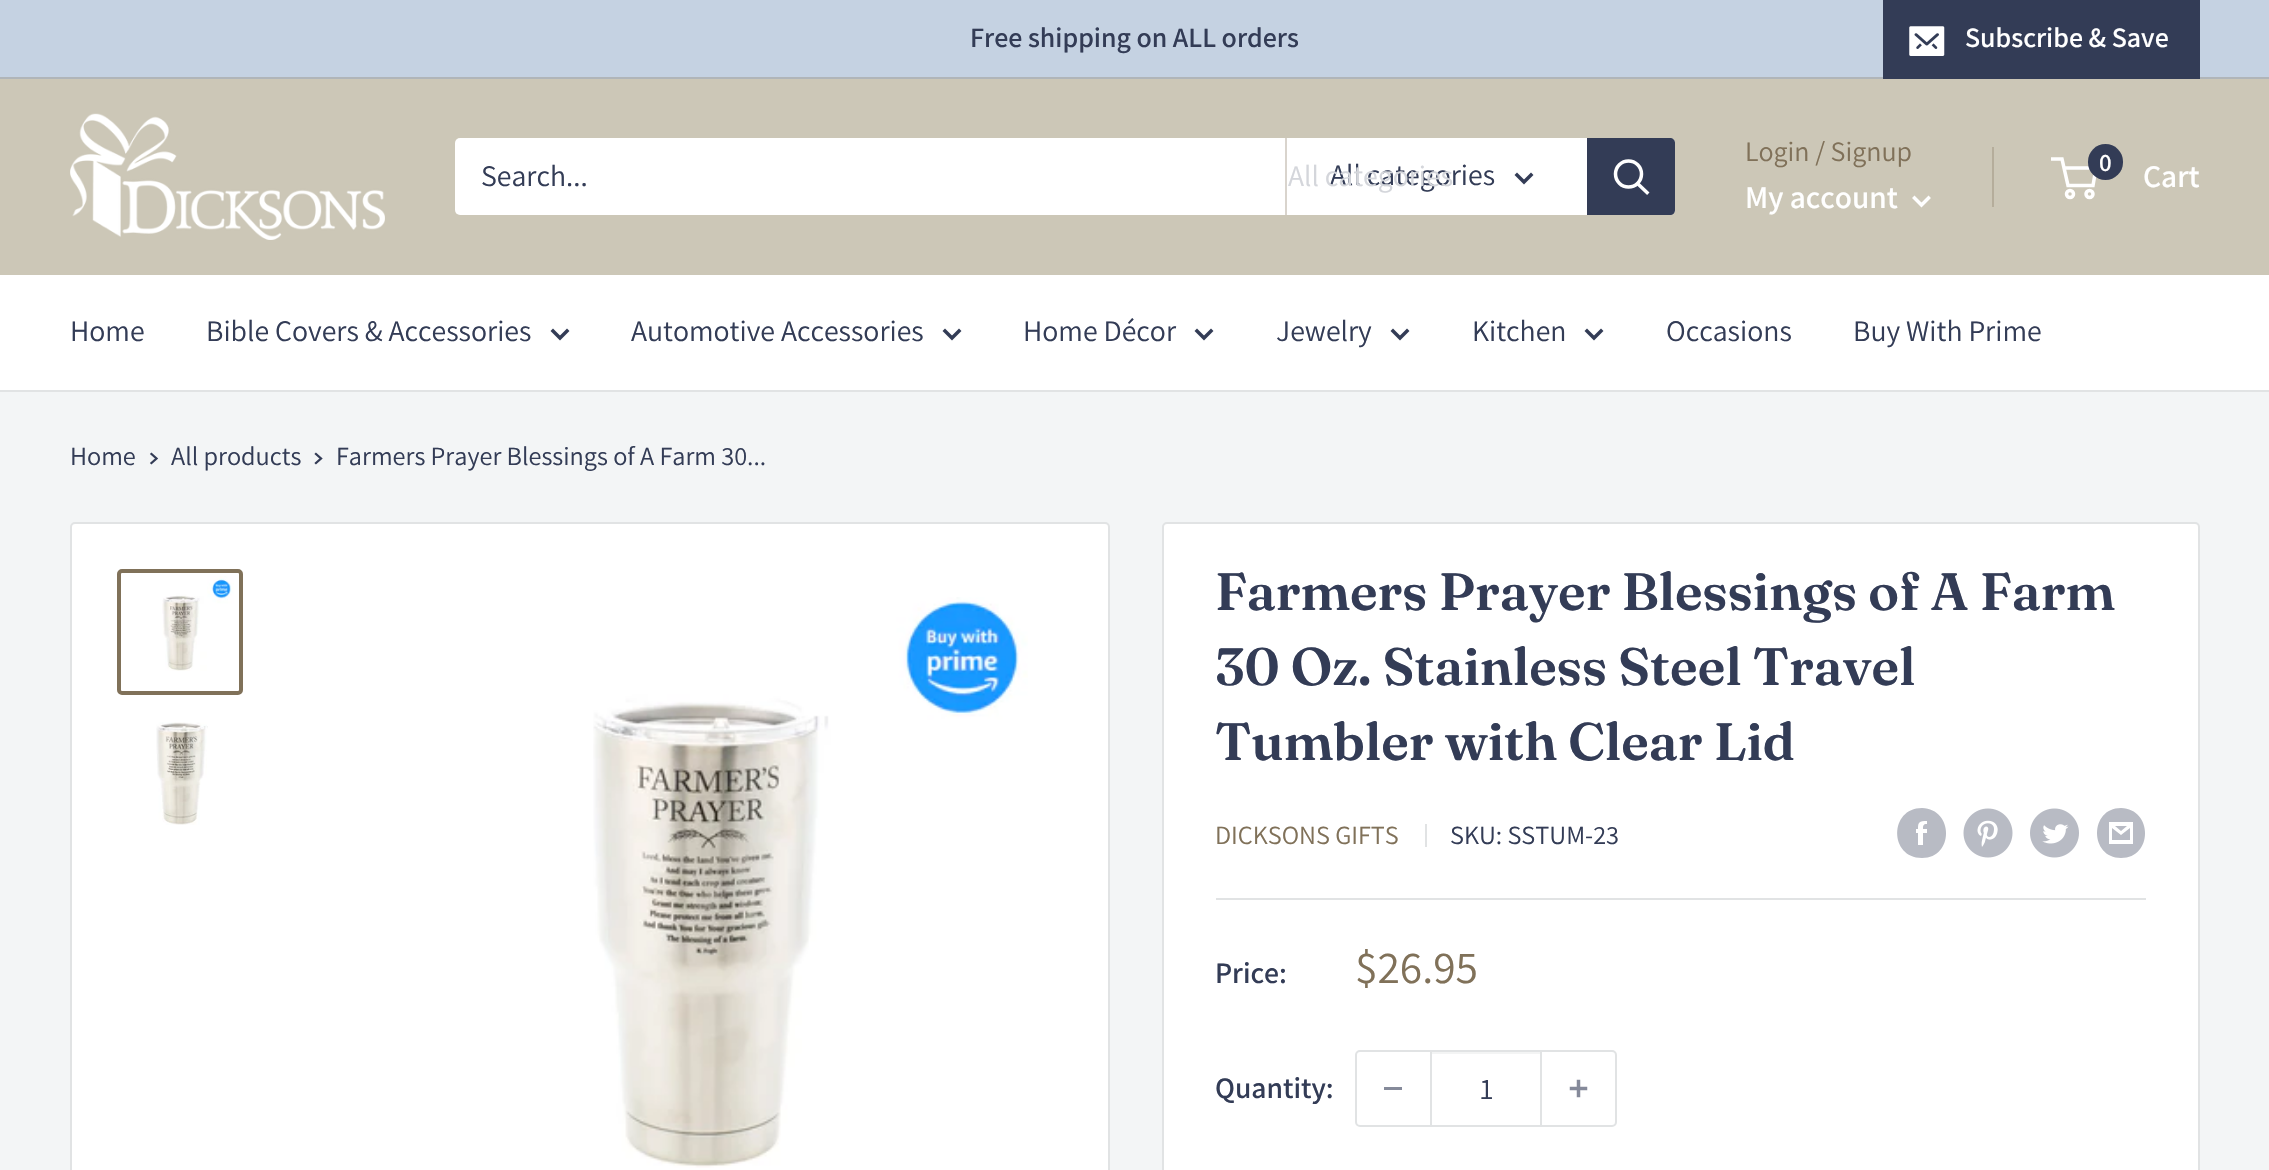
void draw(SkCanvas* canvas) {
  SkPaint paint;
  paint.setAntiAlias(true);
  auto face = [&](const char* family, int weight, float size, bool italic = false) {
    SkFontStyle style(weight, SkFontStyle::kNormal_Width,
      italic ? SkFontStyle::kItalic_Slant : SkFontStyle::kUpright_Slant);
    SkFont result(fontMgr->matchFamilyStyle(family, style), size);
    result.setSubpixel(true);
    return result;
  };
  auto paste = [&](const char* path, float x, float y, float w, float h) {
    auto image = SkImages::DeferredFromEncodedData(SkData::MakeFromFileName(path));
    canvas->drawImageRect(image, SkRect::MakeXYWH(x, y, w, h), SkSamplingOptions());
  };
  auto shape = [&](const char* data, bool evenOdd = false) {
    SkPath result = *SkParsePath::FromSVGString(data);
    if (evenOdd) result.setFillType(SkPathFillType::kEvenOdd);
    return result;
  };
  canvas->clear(0xfff3f5f6);
  paint.setColor(0xffc5d2e2);
  canvas->drawRect(SkRect::MakeXYWH(0, 0, 2269, 77), paint);
  paint.setColor(0xffb0b5b9);
  canvas->drawRect(SkRect::MakeXYWH(0, 77, 2269, 2), paint);
  paint.setColor(0xff333c56);
  canvas->drawPath(shape("M1883 77V79H2200V2V77Z"), paint);
  canvas->drawRect(SkRect::MakeXYWH(1883, 0, 317, 77), paint);
  paste("img/1.png", 1909, 26, 36, 30);
  paint.setColor(0xffccc7b7);
  canvas->drawRect(SkRect::MakeXYWH(0, 79, 2269, 196), paint);
  paste("img/2.png", 70, 113, 315, 127);
  paint.setColor(0xffffffff);
  canvas->drawRoundRect(SkRect::MakeXYWH(455, 138, 1220, 77), 5, 5, paint);
  paint.setColor(0xffd9d4cd);
  canvas->drawRect(SkRect::MakeXYWH(1285, 138, 2, 77), paint);
  paint.setStroke(true);
  paint.setStrokeWidth(3.5f);
  paint.setStrokeCap(SkPaint::kSquare_Cap);
  paint.setColor(0xff333c56);
  canvas->drawPath(shape("M1531 175L1524 182L1517 175"), paint);
  paint.setStroke(false);
  canvas->drawPath(shape("M1587 138H1670C1673 138 1675 140 1675 143V210C1675 213 1673 215 1670 215H1587Z"), paint);
  paint.setStroke(true);
  paint.setColor(0xffffffff);
  canvas->drawPath(shape("M1647 192.5L1638 184"), paint);
  paint.setStrokeCap(SkPaint::kButt_Cap);
  canvas->drawCircle(1628.5f, 174, 13, paint);
  paint.setStroke(false);
  paint.setColor(0xffb5ad9b);
  canvas->drawRect(SkRect::MakeXYWH(1992, 147, 2, 60), paint);
  paint.setStroke(true);
  paint.setStrokeCap(SkPaint::kSquare_Cap);
  paint.setColor(0xffffffff);
  canvas->drawPath(shape("M1928.5 198L1921.5 205L1914.5 198"), paint);
  paint.setStrokeCap(SkPaint::kButt_Cap);
  canvas->drawCircle(2070, 194, 3.5f, paint);
  canvas->drawCircle(2089.5f, 194, 3.5f, paint);
  canvas->drawPath(shape("M2064 168H2096L2093 185.5H2068L2062 159H2051"), paint);
  paint.setStroke(false);
  paint.setColor(0xff333c56);
  canvas->drawRoundRect(SkRect::MakeXYWH(2088, 144, 35, 36), 17.5f, 17.5f, paint);
  paint.setColor(0xffffffff);
  canvas->drawRect(SkRect::MakeXYWH(0, 275, 2269, 115), paint);
  paint.setColor(0xffe1e3e4);
  canvas->drawRect(SkRect::MakeXYWH(0, 390, 2269, 2), paint);
  paint.setStroke(true);
  paint.setStrokeCap(SkPaint::kSquare_Cap);
  paint.setColor(0xff333c56);
  canvas->drawPath(shape("M567 331L560 338L553 331"), paint);
  canvas->drawPath(shape("M959 331L952 338L945 331"), paint);
  canvas->drawPath(shape("M1211 331L1204 338L1197 331"), paint);
  canvas->drawPath(shape("M1407 331L1400 338L1393 331"), paint);
  canvas->drawPath(shape("M1601 331L1594 338L1587 331"), paint);
  paint.setStrokeWidth(2.3f);
  canvas->drawPath(shape("M151.5 454L156.5 458.5L151.5 463"), paint);
  canvas->drawPath(shape("M316 454L321 458.5L316 463"), paint);
  paint.setStroke(false);
  paint.setColor(0xffffffff);
  canvas->drawRoundRect(SkRect::MakeXYWH(71, 523, 1038, 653), 4, 4, paint);
  paint.setStroke(true);
  paint.setStrokeWidth(2);
  paint.setStrokeCap(SkPaint::kButt_Cap);
  paint.setColor(0xffe1e3e4);
  canvas->drawRoundRect(SkRect::MakeXYWH(71, 523, 1038, 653), 4, 4, paint);
  paint.setStrokeWidth(4);
  paint.setColor(0xff807159);
  canvas->drawRoundRect(SkRect::MakeXYWH(119, 571, 122, 122), 3, 3, paint);
  paste("img/3.png", 162, 576, 72, 95);
  paste("img/4.png", 156, 722, 52, 103);
  paste("img/5.png", 593, 597, 435, 571);
  paint.setStroke(false);
  paint.setColor(0xffffffff);
  canvas->drawRoundRect(SkRect::MakeXYWH(1163, 523, 1036, 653), 4, 4, paint);
  paint.setStroke(true);
  paint.setStrokeWidth(2);
  paint.setColor(0xffe1e3e4);
  canvas->drawRoundRect(SkRect::MakeXYWH(1163, 523, 1036, 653), 4, 4, paint);
  paint.setStroke(false);
  canvas->drawRect(SkRect::MakeXYWH(1425, 824, 2, 23), paint);
  paint.setColor(0xffb8bbc4);
  canvas->drawPath(shape("M1922 858C1889 858 1889 808 1922 808C1954 809 1954 858 1922 858ZM1927 829H1923C1923 826 1923 824 1927 824V821C1919 821 1918 822 1918 829H1916V833H1918V845H1923V833H1927Z", true), paint);
  paste("img/6.png", 1963, 808, 50, 50);
  paste("img/7.png", 2030, 808, 49, 50);
  canvas->drawPath(shape("M2121 858C2089 858 2089 808 2121 808C2153 809 2153 858 2121 858ZM2115 826H2127L2121 831ZM2130 828V840H2112V828L2121 835ZM2133 822H2109V844H2133Z"), paint);
  paint.setColor(0xffe1e3e4);
  canvas->drawRect(SkRect::MakeXYWH(1216, 898, 930, 2), paint);
  paint.setStroke(true);
  canvas->drawRoundRect(SkRect::MakeXYWH(1356, 1051, 260, 75), 4, 4, paint);
  paint.setStroke(false);
  {
    const struct { float x, y, w, h; SkColor color; } items[] = {
      {1384, 1087, 18, 3, 0xff858a9a},
      {1432, 1052, 108, 2, 0xfff3f4f4},
      {1540, 1052, 2, 73, 0xffe1e3e4},
      {1430, 1052, 2, 73, 0xffe1e3e4},
    };
    for (auto [x, y, w, h, color] : items) {
      paint.setColor(color);
      canvas->drawRect(SkRect::MakeXYWH(x, y, w, h), paint);
    }
  }
  paste("img/8.png", 1569, 1079, 19, 19);
  auto f0 = face("Assistant", 600, 28);
  paint.setColor(0xff333c56);
  canvas->drawString("Free shipping on ALL orders", 970, 47, f0, paint);
  paint.setColor(0xffffffff);
  canvas->drawString("Subscribe & Save", 1965, 47, f0, paint);
  auto f1 = face("Assistant", 400, 29.75f);
  paint.setColor(0xff333c56);
  canvas->drawString("Search...", 481, 186, f1, paint);
  canvas->drawString("All categories", 1330, 185, f1, paint);
  paint.setColor(0xffd4d6db);
  canvas->drawString("All categories", 1288, 186, f1, paint);
  auto f2 = face("Assistant", 400, 28);
  paint.setColor(0xff807159);
  canvas->drawString("Login / Signup", 1745, 161, f2, paint);
  auto f3 = face("Assistant", 600, 31.5f);
  paint.setColor(0xffffffff);
  canvas->drawString("My account", 1745, 208, f3, paint);
  auto f4 = face("Assistant", 600, 25);
  canvas->drawString("0", 2099, 171, f4, paint);
  canvas->drawString("Cart", 2143, 187, f3, paint);
  paint.setColor(0xff333c56);
  {
    const struct { const char* s; float x, y; } items[] = {
      {"Home", 70, 341},
      {"Bible Covers & Accessories", 206, 341},
      {"Automotive Accessories", 631, 341},
      {"Home Décor", 1023, 341},
      {"Jewelry", 1276, 341},
      {"Kitchen", 1472, 341},
      {"Occasions", 1666, 341},
      {"Buy With Prime", 1853, 341},
    };
    for (auto [s, x, y] : items) {
      canvas->drawString(s, x, y, f1, paint);
    }
  }
  auto f5 = face("Assistant", 400, 26.25f);
  {
    const struct { const char* s; float x, y; } items[] = {
      {"Home", 70, 465},
      {"All products", 171, 465},
      {"Farmers Prayer Blessings of A Farm 30...", 336, 465},
    };
    for (auto [s, x, y] : items) {
      canvas->drawString(s, x, y, f5, paint);
    }
  }
  auto f6 = face("Fraunces", 600, 52.5f);
  {
    const struct { const char* s; float x, y; } items[] = {
      {"Farmers Prayer Blessings of A Farm", 1215, 610},
      {"30 Oz. Stainless Steel Travel", 1215, 685},
      {"Tumbler with Clear Lid", 1215, 760},
    };
    for (auto [s, x, y] : items) {
      canvas->drawString(s, x, y, f6, paint);
    }
  }
  paint.setColor(0xff807159);
  canvas->drawString("DICKSONS GIFTS", 1215, 844, f5, paint);
  paint.setColor(0xff333c56);
  canvas->drawString("SKU: SSTUM-23", 1450, 844, f5, paint);
  auto f7 = face("Assistant", 600, 29.75f);
  canvas->drawString("Price:", 1215, 983, f7, paint);
  auto f8 = face("Assistant", 400, 45.5f);
  paint.setColor(0xff807159);
  canvas->drawString("$26.95", 1355, 983, f8, paint);
  paint.setColor(0xff333c56);
  canvas->drawString("Quantity:", 1215, 1098, f7, paint);
  canvas->drawString("1", 1480, 1099, f1, paint);
}
